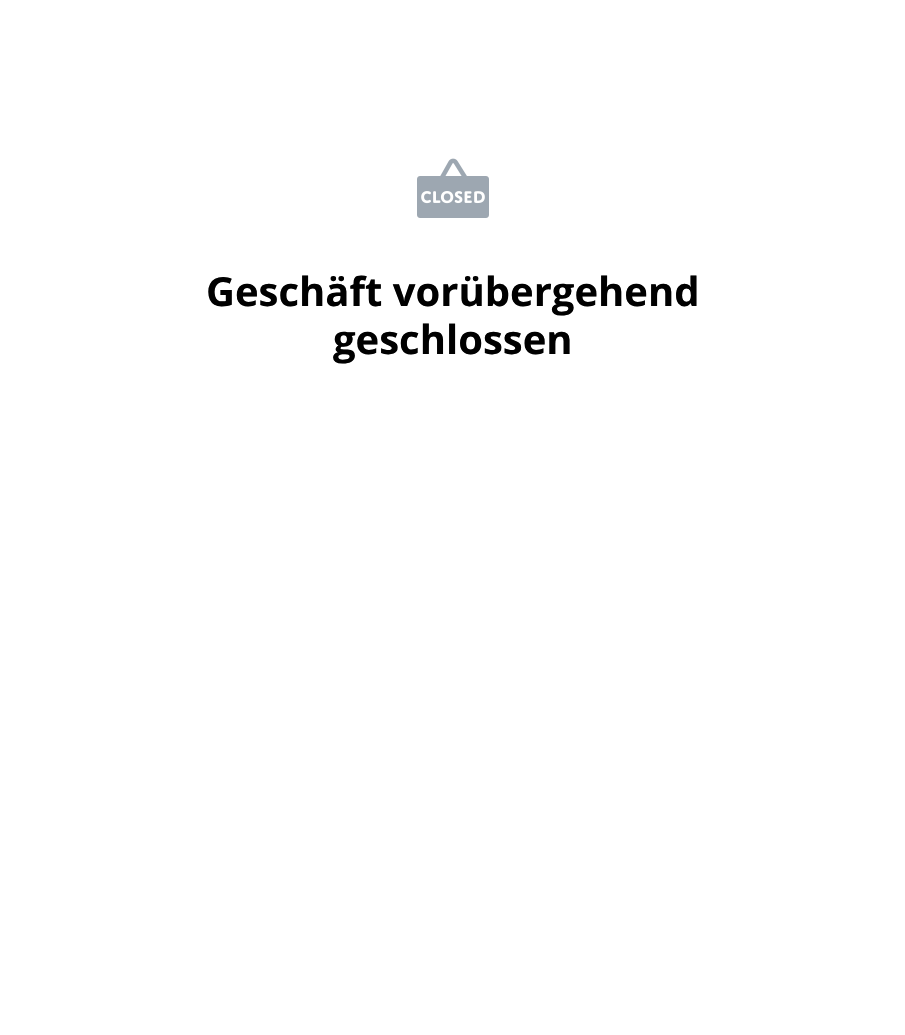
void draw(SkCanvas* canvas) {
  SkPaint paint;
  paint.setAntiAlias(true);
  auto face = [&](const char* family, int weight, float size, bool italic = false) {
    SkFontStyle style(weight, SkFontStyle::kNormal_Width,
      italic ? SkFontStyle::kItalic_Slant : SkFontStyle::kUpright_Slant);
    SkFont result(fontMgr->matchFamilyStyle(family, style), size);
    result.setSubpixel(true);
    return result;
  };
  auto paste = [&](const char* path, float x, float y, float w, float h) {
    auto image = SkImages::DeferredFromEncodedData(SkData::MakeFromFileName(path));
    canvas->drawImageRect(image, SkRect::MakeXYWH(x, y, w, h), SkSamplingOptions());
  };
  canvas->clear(0xffffffff);
  paste("img/1.png", 417, 158, 72, 60);
  auto f0 = face("Open Sans", 700, 40);
  paint.setColor(0xff000000);
  canvas->drawString("Geschäft vorübergehend", 206, 306, f0, paint);
  canvas->drawString("geschlossen", 333, 354, f0, paint);
}
